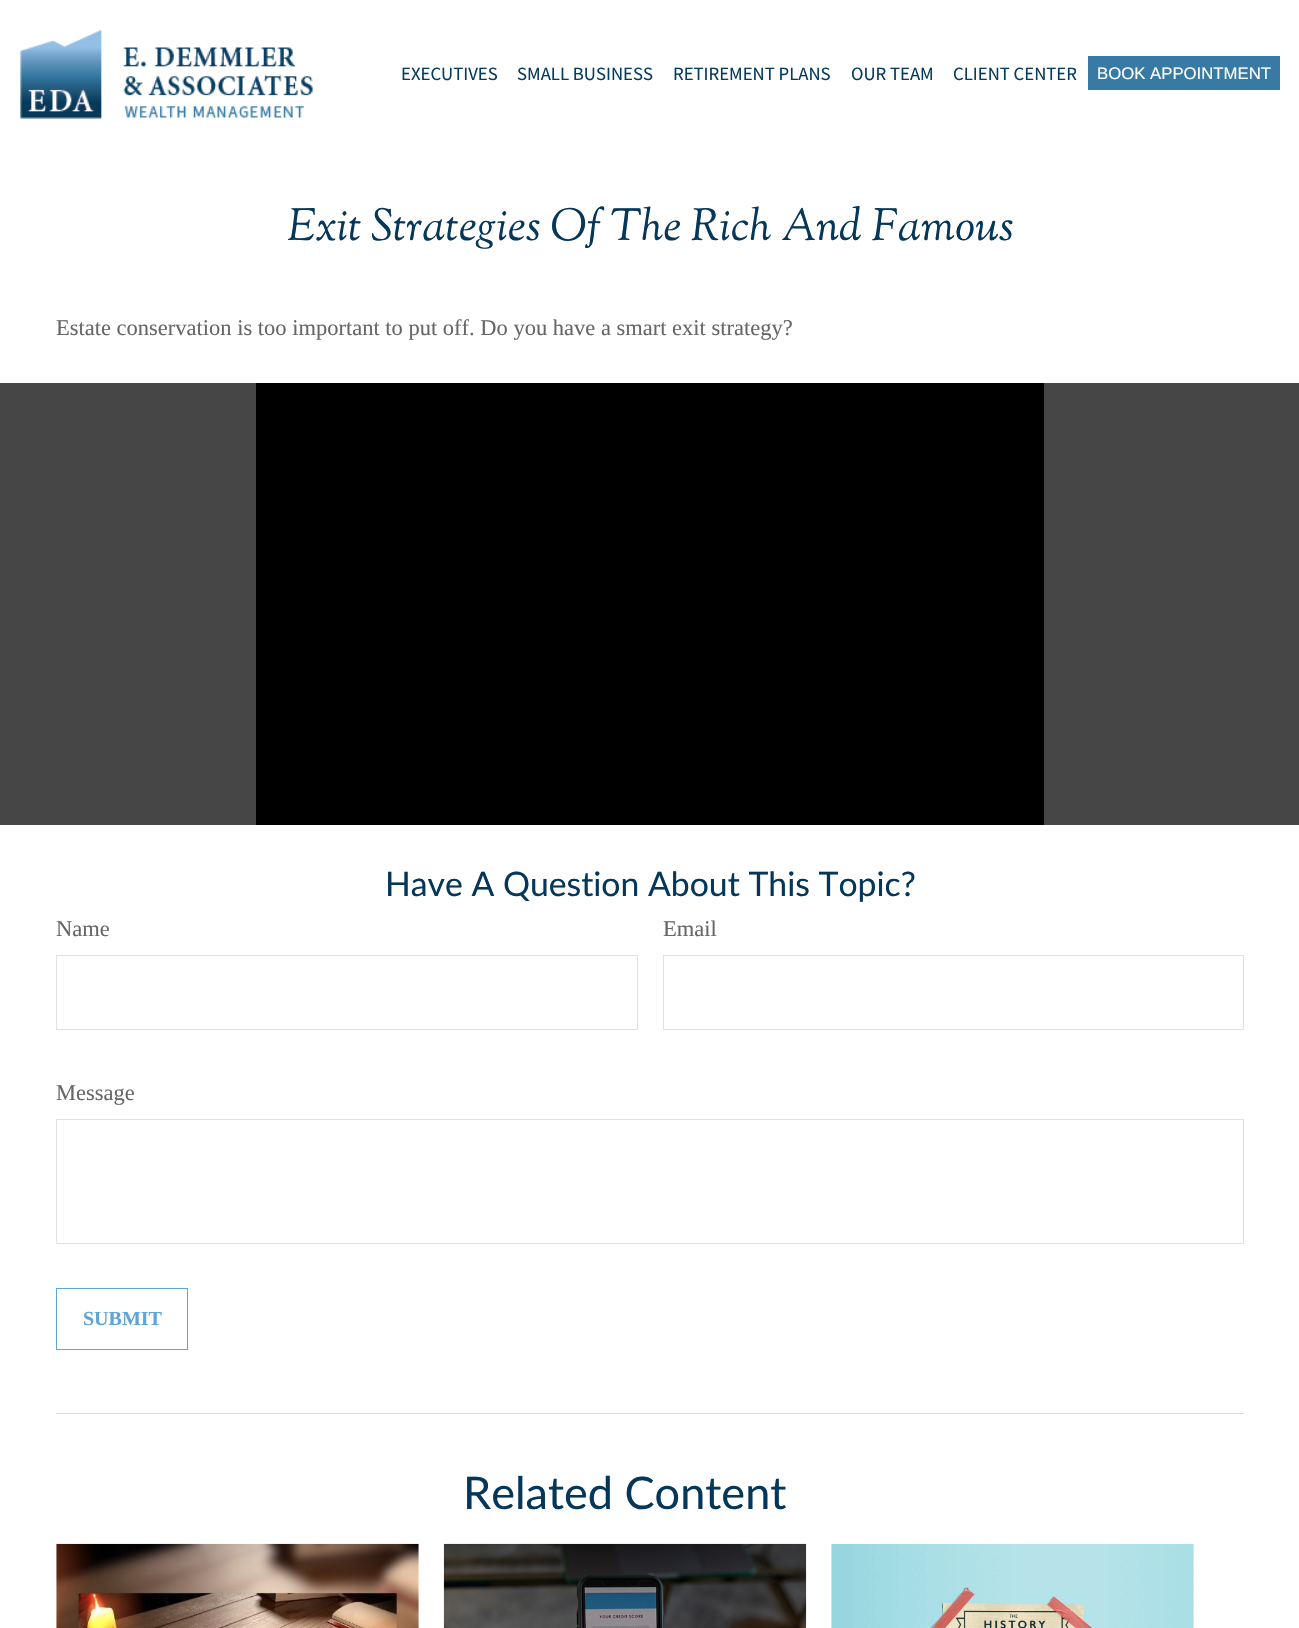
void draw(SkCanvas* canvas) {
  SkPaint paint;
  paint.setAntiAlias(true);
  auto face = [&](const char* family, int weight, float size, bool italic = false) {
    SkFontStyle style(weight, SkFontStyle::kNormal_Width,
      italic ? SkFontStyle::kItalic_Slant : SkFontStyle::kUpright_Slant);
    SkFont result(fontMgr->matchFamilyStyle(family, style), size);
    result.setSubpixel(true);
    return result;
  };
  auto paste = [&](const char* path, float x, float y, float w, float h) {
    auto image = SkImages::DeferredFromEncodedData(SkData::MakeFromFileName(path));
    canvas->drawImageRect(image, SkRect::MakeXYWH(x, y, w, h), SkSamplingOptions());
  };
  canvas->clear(0xffffffff);
  paste("img/1.png", 20, 29, 293, 90);
  {
    const struct { float x, y, w, h; SkColor color; } items[] = {
      {1088, 56, 192, 34, 0xff397aa5},
      {0, 383, 1299, 442, 0xff464646},
      {256, 383, 788, 442, 0xff000000},
      {56, 1413, 1188, 1, 0xffd8d8d6},
    };
    for (auto [x, y, w, h, color] : items) {
      paint.setColor(color);
      canvas->drawRect(SkRect::MakeXYWH(x, y, w, h), paint);
    }
  }
  paint.setStroke(true);
  paint.setStrokeWidth(1);
  paint.setColor(0xffe1e1e1);
  canvas->drawRect(SkRect::MakeXYWH(56.5f, 955.5f, 581, 74), paint);
  canvas->drawRect(SkRect::MakeXYWH(663.5f, 955.5f, 580, 74), paint);
  canvas->drawRect(SkRect::MakeXYWH(56.5f, 1119.5f, 1187, 124), paint);
  paint.setColor(0xff61a4d8);
  canvas->drawRect(SkRect::MakeXYWH(56.5f, 1288.5f, 131, 61), paint);
  paste("img/2.png", 56, 1543, 363, 85);
  paste("img/3.png", 443, 1543, 364, 85);
  paste("img/4.png", 831, 1543, 363, 85);
  auto f0 = face("Source Sans Pro", 400, 18.75f);
  paint.setStroke(false);
  paint.setColor(0xff043b60);
  {
    const struct { const char* s; float x, y; } items[] = {
      {"EXECUTIVES", 401, 80},
      {"SMALL BUSINESS", 517, 80},
      {"RETIREMENT PLANS", 673, 80},
      {"OUR TEAM", 851, 80},
      {"CLIENT CENTER", 953, 80},
    };
    for (auto [s, x, y] : items) {
      canvas->drawString(s, x, y, f0, paint);
    }
  }
  auto f1 = face("Liberation Sans", 400, 16.75f);
  paint.setColor(0xffffffff);
  canvas->drawString("BOOK APPOINTMENT", 1097, 79, f1, paint);
  auto f2 = face("Sorts Mill Goudy", 400, 45, true);
  paint.setColor(0xff043759);
  canvas->drawString("Exit Strategies Of The Rich And Famous", 287, 240, f2, paint);
  auto f3 = face("Liberation Serif", 400, 22.5f);
  paint.setColor(0xff666666);
  canvas->drawString("Estate conservation is too important to put off. Do you have a smart exit strategy?", 56, 335, f3, paint);
  auto f4 = face("Lato", 400, 33.75f);
  paint.setColor(0xff043759);
  canvas->drawString("Have A Question About This Topic?", 385, 896, f4, paint);
  paint.setColor(0xff666666);
  {
    const struct { const char* s; float x, y; } items[] = {
      {"Name", 56, 936},
      {"Email", 663, 936},
      {"Message", 56, 1100},
    };
    for (auto [s, x, y] : items) {
      canvas->drawString(s, x, y, f3, paint);
    }
  }
  auto f5 = face("Liberation Serif", 700, 20);
  paint.setColor(0xff61a4d8);
  canvas->drawString("SUBMIT", 83, 1325, f5, paint);
  auto f6 = face("Lato", 400, 45);
  paint.setColor(0xff043759);
  canvas->drawString("Related Content", 463, 1509, f6, paint);
}
